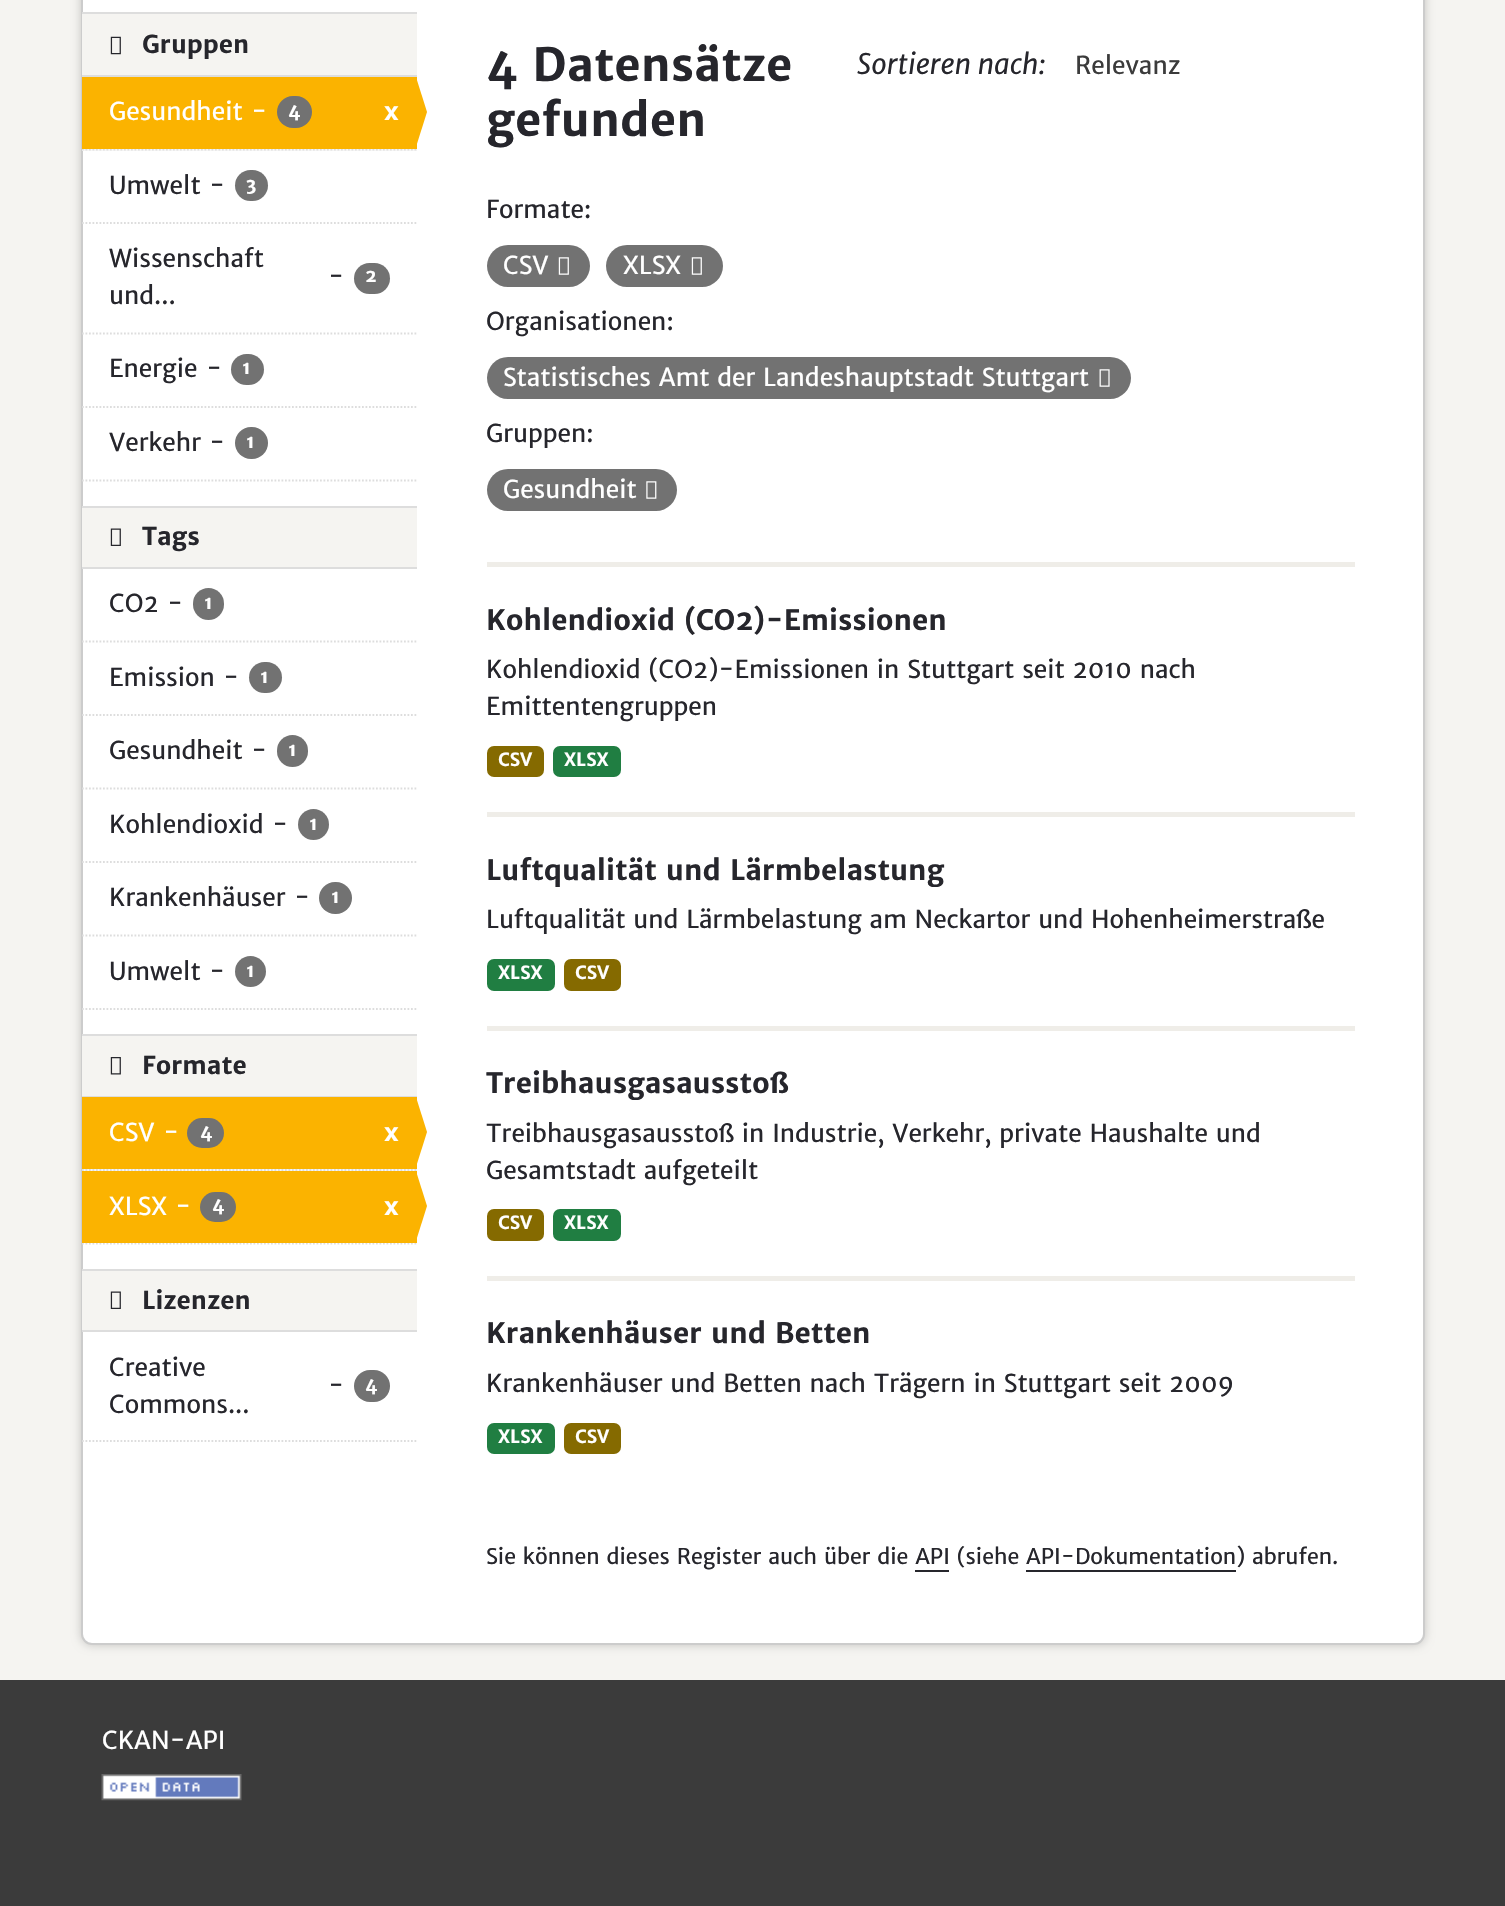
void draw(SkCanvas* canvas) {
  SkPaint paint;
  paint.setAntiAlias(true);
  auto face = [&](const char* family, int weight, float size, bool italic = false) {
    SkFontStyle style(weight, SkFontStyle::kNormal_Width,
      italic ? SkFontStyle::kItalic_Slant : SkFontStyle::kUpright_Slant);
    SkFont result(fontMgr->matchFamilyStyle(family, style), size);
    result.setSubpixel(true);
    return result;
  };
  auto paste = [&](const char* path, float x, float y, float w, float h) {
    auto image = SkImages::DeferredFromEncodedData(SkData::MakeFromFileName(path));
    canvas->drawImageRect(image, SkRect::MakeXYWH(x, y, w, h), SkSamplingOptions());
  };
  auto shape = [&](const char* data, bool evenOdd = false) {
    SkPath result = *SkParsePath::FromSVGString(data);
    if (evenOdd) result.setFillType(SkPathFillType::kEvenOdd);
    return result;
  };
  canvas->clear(0xff3b3b3b);
  paint.setColor(0xfff5f4f1);
  canvas->drawRect(SkRect::MakeXYWH(0, 0, 1505, 1680), paint);
  paint.setColor(0x33000000);
  paint.setMaskFilter(SkMaskFilter::MakeBlur(kNormal_SkBlurStyle, 5));
  canvas->drawRoundRect(SkRect::MakeXYWH(81, -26, 1344, 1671), 11, 11, paint);
  paint.setMaskFilter(nullptr);
  paint.setColor(0xffffffff);
  canvas->drawRoundRect(SkRect::MakeXYWH(82, -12, 1342, 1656), 10, 10, paint);
  paint.setStroke(true);
  paint.setStrokeWidth(2);
  paint.setColor(0xffcccccc);
  canvas->drawRoundRect(SkRect::MakeXYWH(82, -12, 1342, 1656), 10, 10, paint);
  paint.setStroke(false);
  {
    const struct { float x, y, w, h; SkColor color; } items[] = {
      {82, 14, 335, 61, 0xfff5f4f1},
      {82, 12, 335, 2, 0xffdddddd},
      {82, 75, 335, 2, 0xffdddddd},
    };
    for (auto [x, y, w, h, color] : items) {
      paint.setColor(color);
      canvas->drawRect(SkRect::MakeXYWH(x, y, w, h), paint);
    }
  }
  paste("img/1.png", 110, 36, 11, 19);
  paint.setColor(0xfff6f6f6);
  canvas->drawRect(SkRect::MakeXYWH(82, 149, 335, 2), paint);
  paint.setStroke(true);
  paint.setStrokeWidth(1.8f);
  paint.setColor(0xffdddddd);
  paint.setPathEffect(SkDashPathEffect::Make({{1.75f, 1.75f}}, 0));
  canvas->drawPath(shape("M82 149.5H416.5"), paint);
  paint.setPathEffect(nullptr);
  paint.setStroke(false);
  paint.setColor(0xfffbb300);
  canvas->drawRect(SkRect::MakeXYWH(82, 77, 335, 72), paint);
  paint.setColor(0xff727272);
  canvas->drawRoundRect(SkRect::MakeXYWH(277, 96, 35, 32), 16, 16, paint);
  paint.setColor(0xfffbb300);
  canvas->drawPath(shape("M416 147V77L427 112Z"), paint);
  paint.setStroke(true);
  paint.setColor(0xffdddddd);
  paint.setPathEffect(SkDashPathEffect::Make({{1.75f, 1.75f}}, 0));
  canvas->drawPath(shape("M82 223H416.5"), paint);
  paint.setPathEffect(nullptr);
  paint.setStroke(false);
  paint.setColor(0xff727272);
  canvas->drawRoundRect(SkRect::MakeXYWH(235, 170, 33, 31), 15.5f, 15.5f, paint);
  paint.setStroke(true);
  paint.setColor(0xffdddddd);
  paint.setPathEffect(SkDashPathEffect::Make({{1.75f, 1.75f}}, 0));
  canvas->drawPath(shape("M82 333.5H416.5"), paint);
  paint.setPathEffect(nullptr);
  paint.setStroke(false);
  paint.setColor(0xff727272);
  canvas->drawRoundRect(SkRect::MakeXYWH(354, 263, 36, 31), 15.5f, 15.5f, paint);
  paint.setStroke(true);
  paint.setColor(0xffdddddd);
  paint.setPathEffect(SkDashPathEffect::Make({{1.75f, 1.75f}}, 0));
  canvas->drawPath(shape("M82 407H416.5"), paint);
  paint.setPathEffect(nullptr);
  paint.setStroke(false);
  paint.setColor(0xff727272);
  canvas->drawRoundRect(SkRect::MakeXYWH(231, 354, 33, 31), 15.5f, 15.5f, paint);
  canvas->drawRoundRect(SkRect::MakeXYWH(235, 427, 33, 32), 16, 16, paint);
  paint.setStroke(true);
  paint.setColor(0xffdddddd);
  paint.setPathEffect(SkDashPathEffect::Make({{1.75f, 1.75f}}, 0));
  canvas->drawPath(shape("M82 480.5H416.5"), paint);
  paint.setPathEffect(nullptr);
  paint.setStroke(false);
  {
    const struct { float x, y, w, h; SkColor color; } items[] = {
      {82, 508, 335, 59, 0xfff5f4f1},
      {82, 506, 335, 2, 0xffdddddd},
      {82, 567, 335, 2, 0xffdddddd},
    };
    for (auto [x, y, w, h, color] : items) {
      paint.setColor(color);
      canvas->drawRect(SkRect::MakeXYWH(x, y, w, h), paint);
    }
  }
  paste("img/2.png", 110, 528, 11, 18);
  paint.setStroke(true);
  paint.setPathEffect(SkDashPathEffect::Make({{1.75f, 1.75f}}, 0));
  canvas->drawPath(shape("M82 641.5H416.5"), paint);
  paint.setPathEffect(nullptr);
  paint.setStroke(false);
  paint.setColor(0xff727272);
  canvas->drawRoundRect(SkRect::MakeXYWH(193, 588, 31, 32), 15.5f, 15.5f, paint);
  paint.setStroke(true);
  paint.setColor(0xffdddddd);
  paint.setPathEffect(SkDashPathEffect::Make({{1.75f, 1.75f}}, 0));
  canvas->drawPath(shape("M82 715H416.5"), paint);
  paint.setPathEffect(nullptr);
  paint.setStroke(false);
  paint.setColor(0xff727272);
  canvas->drawRoundRect(SkRect::MakeXYWH(249, 662, 33, 31), 15.5f, 15.5f, paint);
  paint.setStroke(true);
  paint.setColor(0xffdddddd);
  paint.setPathEffect(SkDashPathEffect::Make({{1.75f, 1.75f}}, 0));
  canvas->drawPath(shape("M82 788.5H416.5"), paint);
  paint.setPathEffect(nullptr);
  paint.setStroke(false);
  paint.setColor(0xff727272);
  canvas->drawRoundRect(SkRect::MakeXYWH(277, 735, 31, 32), 15.5f, 15.5f, paint);
  paint.setStroke(true);
  paint.setColor(0xffdddddd);
  paint.setPathEffect(SkDashPathEffect::Make({{1.75f, 1.75f}}, 0));
  canvas->drawPath(shape("M82 862H416.5"), paint);
  paint.setPathEffect(nullptr);
  paint.setStroke(false);
  paint.setColor(0xff727272);
  canvas->drawCircle(313.5f, 824.5f, 15.5f, paint);
  paint.setStroke(true);
  paint.setColor(0xffdddddd);
  paint.setPathEffect(SkDashPathEffect::Make({{1.75f, 1.75f}}, 0));
  canvas->drawPath(shape("M82 935.5H416.5"), paint);
  paint.setPathEffect(nullptr);
  paint.setStroke(false);
  paint.setColor(0xff727272);
  canvas->drawRoundRect(SkRect::MakeXYWH(319, 882, 33, 32), 16, 16, paint);
  canvas->drawCircle(250.5f, 971.5f, 15.5f, paint);
  paint.setStroke(true);
  paint.setColor(0xffdddddd);
  paint.setPathEffect(SkDashPathEffect::Make({{1.75f, 1.75f}}, 0));
  canvas->drawPath(shape("M82 1009H416.5"), paint);
  paint.setPathEffect(nullptr);
  paint.setStroke(false);
  {
    const struct { float x, y, w, h; SkColor color; } items[] = {
      {82, 1036, 335, 60, 0xfff5f4f1},
      {82, 1034, 335, 2, 0xffdddddd},
      {82, 1096, 335, 1, 0xffdddddd},
    };
    for (auto [x, y, w, h, color] : items) {
      paint.setColor(color);
      canvas->drawRect(SkRect::MakeXYWH(x, y, w, h), paint);
    }
  }
  paste("img/3.png", 110, 1057, 11, 18);
  paint.setColor(0xfff6f6f6);
  canvas->drawRect(SkRect::MakeXYWH(82, 1169, 335, 2), paint);
  paint.setStroke(true);
  paint.setColor(0xffdddddd);
  paint.setPathEffect(SkDashPathEffect::Make({{1.75f, 1.75f}}, 0));
  canvas->drawPath(shape("M82 1170H416.5"), paint);
  paint.setPathEffect(nullptr);
  paint.setStroke(false);
  paint.setColor(0xfffbb300);
  canvas->drawRect(SkRect::MakeXYWH(82, 1097, 335, 72), paint);
  paint.setColor(0xff727272);
  canvas->drawRoundRect(SkRect::MakeXYWH(187, 1118, 37, 30), 15, 15, paint);
  paint.setColor(0xfffbb300);
  canvas->drawPath(shape("M416 1167V1097L427 1132Z"), paint);
  paint.setStroke(true);
  paint.setColor(0xffdddddd);
  paint.setPathEffect(SkDashPathEffect::Make({{1.75f, 1.75f}}, 0));
  canvas->drawPath(shape("M82 1243.5H416.5"), paint);
  paint.setPathEffect(nullptr);
  paint.setStroke(false);
  paint.setColor(0xfffbb300);
  canvas->drawRect(SkRect::MakeXYWH(82, 1171, 335, 72), paint);
  paint.setColor(0xff727272);
  canvas->drawRoundRect(SkRect::MakeXYWH(200, 1192, 36, 30), 15, 15, paint);
  paint.setColor(0xfffbb300);
  canvas->drawPath(shape("M416 1241V1171L427 1206Z"), paint);
  {
    const struct { float x, y, w, h; SkColor color; } items[] = {
      {82, 1271, 335, 59, 0xfff5f4f1},
      {82, 1269, 335, 2, 0xffdddddd},
      {82, 1330, 335, 2, 0xffdddddd},
    };
    for (auto [x, y, w, h, color] : items) {
      paint.setColor(color);
      canvas->drawRect(SkRect::MakeXYWH(x, y, w, h), paint);
    }
  }
  paste("img/2.png", 110, 1291, 11, 18);
  paint.setColor(0xff727272);
  canvas->drawRoundRect(SkRect::MakeXYWH(354, 1370, 36, 32), 16, 16, paint);
  paint.setStroke(true);
  paint.setColor(0xffdddddd);
  paint.setPathEffect(SkDashPathEffect::Make({{1.75f, 1.75f}}, 0));
  canvas->drawPath(shape("M82 1441H416.5"), paint);
  paint.setPathEffect(nullptr);
  paint.setStroke(false);
  paint.setColor(0xffefede8);
  canvas->drawRect(SkRect::MakeXYWH(487, 562, 868, 5), paint);
  paint.setColor(0xff727272);
  canvas->drawRoundRect(SkRect::MakeXYWH(487, 245, 103, 42), 21, 21, paint);
  paste("img/4.png", 558, 257, 11, 18);
  canvas->drawRoundRect(SkRect::MakeXYWH(606, 245, 117, 42), 21, 21, paint);
  paste("img/4.png", 691, 257, 11, 18);
  canvas->drawRoundRect(SkRect::MakeXYWH(487, 357, 644, 42), 21, 21, paint);
  paste("img/5.png", 1099, 369, 11, 18);
  canvas->drawRoundRect(SkRect::MakeXYWH(487, 469, 190, 42), 21, 21, paint);
  paste("img/6.png", 646, 481, 11, 18);
  paint.setColor(0xffefede8);
  canvas->drawRect(SkRect::MakeXYWH(487, 812, 868, 5), paint);
  paint.setColor(0xff856a00);
  canvas->drawRoundRect(SkRect::MakeXYWH(487, 746, 57, 31), 7, 7, paint);
  paint.setColor(0xff207e42);
  canvas->drawRoundRect(SkRect::MakeXYWH(553, 746, 68, 31), 7, 7, paint);
  paint.setColor(0xffefede8);
  canvas->drawRect(SkRect::MakeXYWH(487, 1026, 868, 5), paint);
  paint.setColor(0xff207e42);
  canvas->drawRoundRect(SkRect::MakeXYWH(487, 959, 68, 32), 7, 7, paint);
  paint.setColor(0xff856a00);
  canvas->drawRoundRect(SkRect::MakeXYWH(564, 959, 57, 32), 7, 7, paint);
  paint.setColor(0xffefede8);
  canvas->drawRect(SkRect::MakeXYWH(487, 1276, 868, 5), paint);
  paint.setColor(0xff856a00);
  canvas->drawRoundRect(SkRect::MakeXYWH(487, 1209, 57, 32), 7, 7, paint);
  paint.setColor(0xff207e42);
  canvas->drawRoundRect(SkRect::MakeXYWH(553, 1209, 68, 32), 7, 7, paint);
  canvas->drawRoundRect(SkRect::MakeXYWH(487, 1423, 68, 31), 7, 7, paint);
  paint.setColor(0xff856a00);
  canvas->drawRoundRect(SkRect::MakeXYWH(564, 1423, 57, 31), 7, 7, paint);
  paint.setColor(0xff26262c);
  canvas->drawRect(SkRect::MakeXYWH(915, 1570, 34, 2), paint);
  canvas->drawRect(SkRect::MakeXYWH(1026, 1570, 210, 2), paint);
  paste("img/7.png", 101, 1774, 141, 27);
  auto f0 = face("Merriweather Sans", 700, 24.5f);
  canvas->drawString("Gruppen", 142, 53, f0, paint);
  auto f1 = face("Merriweather Sans", 400, 24.5f);
  paint.setColor(0xffffffff);
  canvas->drawString("Gesundheit", 109, 120, f1, paint);
  canvas->drawString("-", 251, 120, f1, paint);
  auto f2 = face("Merriweather Sans", 700, 18);
  canvas->drawString("4", 288, 117, f2, paint);
  canvas->drawString("x", 384, 120, f0, paint);
  paint.setColor(0xff26262c);
  canvas->drawString("Umwelt", 109, 194, f1, paint);
  canvas->drawString("-", 209, 194, f1, paint);
  paint.setColor(0xffffffff);
  canvas->drawString("3", 246, 191, f2, paint);
  paint.setColor(0xff26262c);
  {
    const struct { const char* s; float x, y; } items[] = {
      {"Wissenschaft", 109, 267},
      {"und...", 109, 304},
      {"-", 328, 285},
    };
    for (auto [s, x, y] : items) {
      canvas->drawString(s, x, y, f1, paint);
    }
  }
  paint.setColor(0xffffffff);
  canvas->drawString("2", 365, 282, f2, paint);
  paint.setColor(0xff26262c);
  canvas->drawString("Energie", 109, 377, f1, paint);
  canvas->drawString("-", 206, 377, f1, paint);
  paint.setColor(0xffffffff);
  canvas->drawString("1", 242, 374, f2, paint);
  paint.setColor(0xff26262c);
  canvas->drawString("Verkehr", 109, 451, f1, paint);
  canvas->drawString("-", 209, 451, f1, paint);
  paint.setColor(0xffffffff);
  canvas->drawString("1", 246, 448, f2, paint);
  paint.setColor(0xff26262c);
  canvas->drawString("Tags", 142, 545, f0, paint);
  canvas->drawString("CO2", 109, 612, f1, paint);
  canvas->drawString("-", 167, 612, f1, paint);
  paint.setColor(0xffffffff);
  canvas->drawString("1", 204, 609, f2, paint);
  paint.setColor(0xff26262c);
  canvas->drawString("Emission", 109, 686, f1, paint);
  canvas->drawString("-", 223, 686, f1, paint);
  paint.setColor(0xffffffff);
  canvas->drawString("1", 260, 683, f2, paint);
  paint.setColor(0xff26262c);
  canvas->drawString("Gesundheit", 109, 759, f1, paint);
  canvas->drawString("-", 251, 759, f1, paint);
  paint.setColor(0xffffffff);
  canvas->drawString("1", 288, 756, f2, paint);
  paint.setColor(0xff26262c);
  canvas->drawString("Kohlendioxid", 109, 833, f1, paint);
  canvas->drawString("-", 272, 833, f1, paint);
  paint.setColor(0xffffffff);
  canvas->drawString("1", 309, 830, f2, paint);
  paint.setColor(0xff26262c);
  canvas->drawString("Krankenhäuser", 109, 906, f1, paint);
  canvas->drawString("-", 294, 906, f1, paint);
  paint.setColor(0xffffffff);
  canvas->drawString("1", 331, 903, f2, paint);
  paint.setColor(0xff26262c);
  canvas->drawString("Umwelt", 109, 980, f1, paint);
  canvas->drawString("-", 209, 980, f1, paint);
  paint.setColor(0xffffffff);
  canvas->drawString("1", 246, 977, f2, paint);
  paint.setColor(0xff26262c);
  canvas->drawString("Formate", 142, 1074, f0, paint);
  paint.setColor(0xffffffff);
  canvas->drawString("CSV", 109, 1141, f1, paint);
  canvas->drawString("-", 163, 1141, f1, paint);
  canvas->drawString("4", 200, 1138, f2, paint);
  canvas->drawString("x", 384, 1141, f0, paint);
  canvas->drawString("XLSX", 109, 1215, f1, paint);
  canvas->drawString("-", 175, 1215, f1, paint);
  canvas->drawString("4", 212, 1211, f2, paint);
  canvas->drawString("x", 384, 1215, f0, paint);
  paint.setColor(0xff26262c);
  canvas->drawString("Lizenzen", 142, 1309, f0, paint);
  {
    const struct { const char* s; float x, y; } items[] = {
      {"Creative", 109, 1376},
      {"Commons...", 109, 1413},
      {"-", 328, 1394},
    };
    for (auto [s, x, y] : items) {
      canvas->drawString(s, x, y, f1, paint);
    }
  }
  paint.setColor(0xffffffff);
  canvas->drawString("4", 365, 1391, f2, paint);
  auto f3 = face("Merriweather Sans", 700, 45.5f);
  paint.setColor(0xff26262c);
  canvas->drawString("4 Datensätze", 486, 81, f3, paint);
  canvas->drawString("gefunden", 486, 136, f3, paint);
  auto f4 = face("Merriweather Sans", 400, 28, true);
  canvas->drawString("Sortieren nach:", 857, 74, f4, paint);
  paint.setColor(0xff3b3b3b);
  canvas->drawString("Relevanz", 1075, 74, f1, paint);
  paint.setColor(0xff26262c);
  canvas->drawString("Formate:", 486, 218, f1, paint);
  paint.setColor(0xffffffff);
  canvas->drawString("CSV", 503, 274, f1, paint);
  canvas->drawString("XLSX", 623, 274, f1, paint);
  paint.setColor(0xff26262c);
  canvas->drawString("Organisationen:", 486, 330, f1, paint);
  paint.setColor(0xffffffff);
  canvas->drawString("Statistisches Amt der Landeshauptstadt Stuttgart", 503, 386, f1, paint);
  paint.setColor(0xff26262c);
  canvas->drawString("Gruppen:", 486, 442, f1, paint);
  paint.setColor(0xffffffff);
  canvas->drawString("Gesundheit", 503, 498, f1, paint);
  auto f5 = face("Merriweather Sans", 700, 28);
  paint.setColor(0xff26262c);
  canvas->drawString("Kohlendioxid (CO2)-Emissionen", 486, 630, f5, paint);
  canvas->drawString("Kohlendioxid (CO2)-Emissionen in Stuttgart seit 2010 nach", 486, 678, f1, paint);
  canvas->drawString("Emittentengruppen", 486, 715, f1, paint);
  paint.setColor(0xffffffff);
  canvas->drawString("CSV", 498, 766, f2, paint);
  canvas->drawString("XLSX", 564, 766, f2, paint);
  paint.setColor(0xff26262c);
  canvas->drawString("Luftqualität und Lärmbelastung", 486, 880, f5, paint);
  canvas->drawString("Luftqualität und Lärmbelastung am Neckartor und Hohenheimerstraße", 486, 928, f1, paint);
  paint.setColor(0xffffffff);
  canvas->drawString("XLSX", 498, 979, f2, paint);
  canvas->drawString("CSV", 575, 979, f2, paint);
  paint.setColor(0xff26262c);
  canvas->drawString("Treibhausgasausstoß", 486, 1093, f5, paint);
  canvas->drawString("Treibhausgasausstoß in Industrie, Verkehr, private Haushalte und", 486, 1142, f1, paint);
  canvas->drawString("Gesamtstadt aufgeteilt", 486, 1179, f1, paint);
  paint.setColor(0xffffffff);
  canvas->drawString("CSV", 498, 1229, f2, paint);
  canvas->drawString("XLSX", 564, 1229, f2, paint);
  paint.setColor(0xff26262c);
  canvas->drawString("Krankenhäuser und Betten", 486, 1343, f5, paint);
  canvas->drawString("Krankenhäuser und Betten nach Trägern in Stuttgart seit 2009", 486, 1392, f1, paint);
  paint.setColor(0xffffffff);
  canvas->drawString("XLSX", 498, 1443, f2, paint);
  canvas->drawString("CSV", 575, 1443, f2, paint);
  auto f6 = face("Merriweather Sans", 400, 21.45f);
  paint.setColor(0xff26262c);
  canvas->drawString("Sie können dieses Register auch über die API (siehe API-Dokumentation) abrufen.", 486, 1564, f6, paint);
  paint.setColor(0xffffffff);
  canvas->drawString("CKAN-API", 102, 1749, f1, paint);
}
